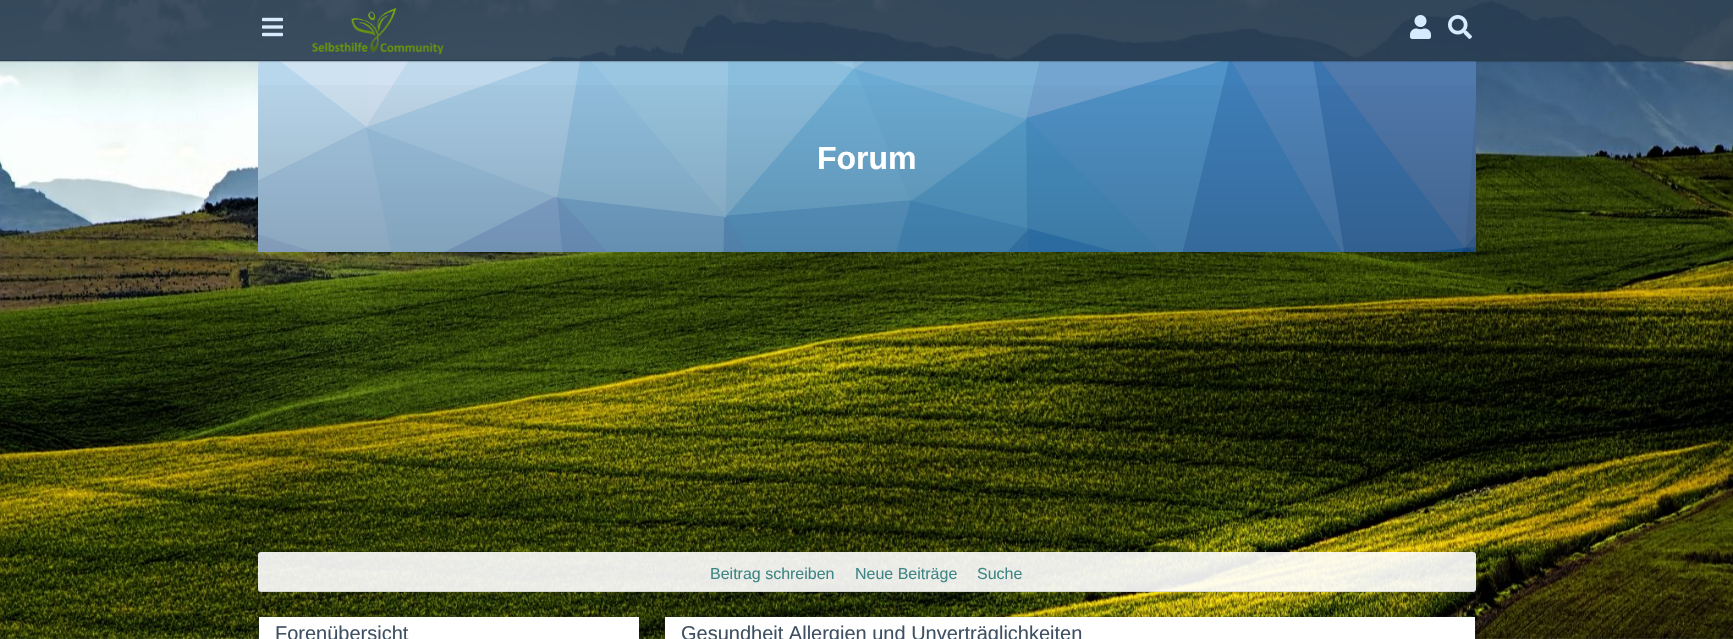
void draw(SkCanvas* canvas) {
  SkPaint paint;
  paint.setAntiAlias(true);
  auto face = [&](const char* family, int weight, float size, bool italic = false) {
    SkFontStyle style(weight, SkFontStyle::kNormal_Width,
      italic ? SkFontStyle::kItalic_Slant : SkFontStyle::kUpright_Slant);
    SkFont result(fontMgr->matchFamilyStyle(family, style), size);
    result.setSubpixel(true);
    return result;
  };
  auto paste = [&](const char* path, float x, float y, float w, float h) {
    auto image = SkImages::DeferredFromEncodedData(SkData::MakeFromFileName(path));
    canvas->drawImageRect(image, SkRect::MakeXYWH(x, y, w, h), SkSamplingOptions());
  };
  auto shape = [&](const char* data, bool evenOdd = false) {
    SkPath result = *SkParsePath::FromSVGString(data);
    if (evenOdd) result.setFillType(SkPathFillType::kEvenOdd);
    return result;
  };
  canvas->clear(0xffffffff);
  paste("img/1.png", 0, 0, 1733, 639);
  paste("img/6.png", 258, 61, 1218, 191);
  canvas->save();
  canvas->clipRect(SkRect::MakeXYWH(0, 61, 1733, 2));
  paint.setColor(0x33000000);
  paint.setMaskFilter(SkMaskFilter::MakeBlur(kNormal_SkBlurStyle, 0.5f));
  canvas->drawRect(SkRect::MakeXYWH(-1, -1, 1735, 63), paint);
  paint.setMaskFilter(nullptr);
  canvas->restore();
  paint.setColor(0xe6283c50);
  canvas->drawRect(SkRect::MakeXYWH(0, 0, 1733, 61), paint);
  paint.setColor(0xf2283c50);
  canvas->drawRect(SkRect::MakeXYWH(0, 60, 1733, 1), paint);
  paste("img/2.png", 262, 17, 21, 20);
  paste("img/3.png", 311, 8, 133, 47);
  paste("img/4.png", 1410, 15, 21, 24);
  paste("img/5.png", 1448, 15, 24, 24);
  {
    const SkColor colors[] = {0x00000000, 0x2b000000};
    const float stops[] = {0, 1};
    const SkPoint ends[] = {{867, 61}, {867, 252}};
    paint.setShader(SkGradientShader::MakeLinear(ends, colors, stops, 2, SkTileMode::kClamp));
    paint.setAlpha(255);
  }
  canvas->drawRect(SkRect::MakeXYWH(258, 85, 1218, 167), paint);
  paint.setShader(nullptr);
  paint.setColor(0xe6ffffff);
  canvas->drawRoundRect(SkRect::MakeXYWH(258, 552, 1218, 40), 3, 3, paint);
  paint.setColor(0x1a000000);
  canvas->drawPath(shape("M258 588V589C258 591 259 592 261 592H1473C1475 592 1476 591 1476 589V588C1476 590 1475 591 1473 591H261C259 591 258 590 258 588Z"), paint);
  paint.setStroke(true);
  paint.setStrokeWidth(1);
  paint.setColor(0x1a283c50);
  canvas->drawRoundRect(SkRect::MakeXYWH(258.5f, 616.5f, 381, 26), 2.5f, 2.5f, paint);
  paint.setStroke(false);
  paint.setColor(0xffffffff);
  canvas->drawRect(SkRect::MakeXYWH(259, 617, 380, 22), paint);
  paint.setStroke(true);
  paint.setColor(0x1a283c50);
  canvas->drawRoundRect(SkRect::MakeXYWH(664.5f, 616.5f, 811, 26), 2.5f, 2.5f, paint);
  paint.setStroke(false);
  paint.setColor(0xffffffff);
  canvas->drawRect(SkRect::MakeXYWH(665, 617, 810, 22), paint);
  auto f0 = face("Liberation Sans", 700, 32);
  canvas->drawString("Forum", 817, 169, f0, paint);
  auto f1 = face("Liberation Sans", 400, 16);
  paint.setColor(0xff3e8685);
  {
    const struct { const char* s; float x, y; } items[] = {
      {"Beitrag schreiben", 710, 579},
      {"Neue Beiträge", 855, 579},
      {"Suche", 977, 579},
    };
    for (auto [s, x, y] : items) {
      canvas->drawString(s, x, y, f1, paint);
    }
  }
  auto f2 = face("Liberation Sans", 400, 20);
  paint.setColor(0xff3e5062);
  canvas->drawString("Forenübersicht", 275, 640, f2, paint);
  canvas->drawString("Gesundheit Allergien und Unverträglichkeiten", 681, 640, f2, paint);
}
